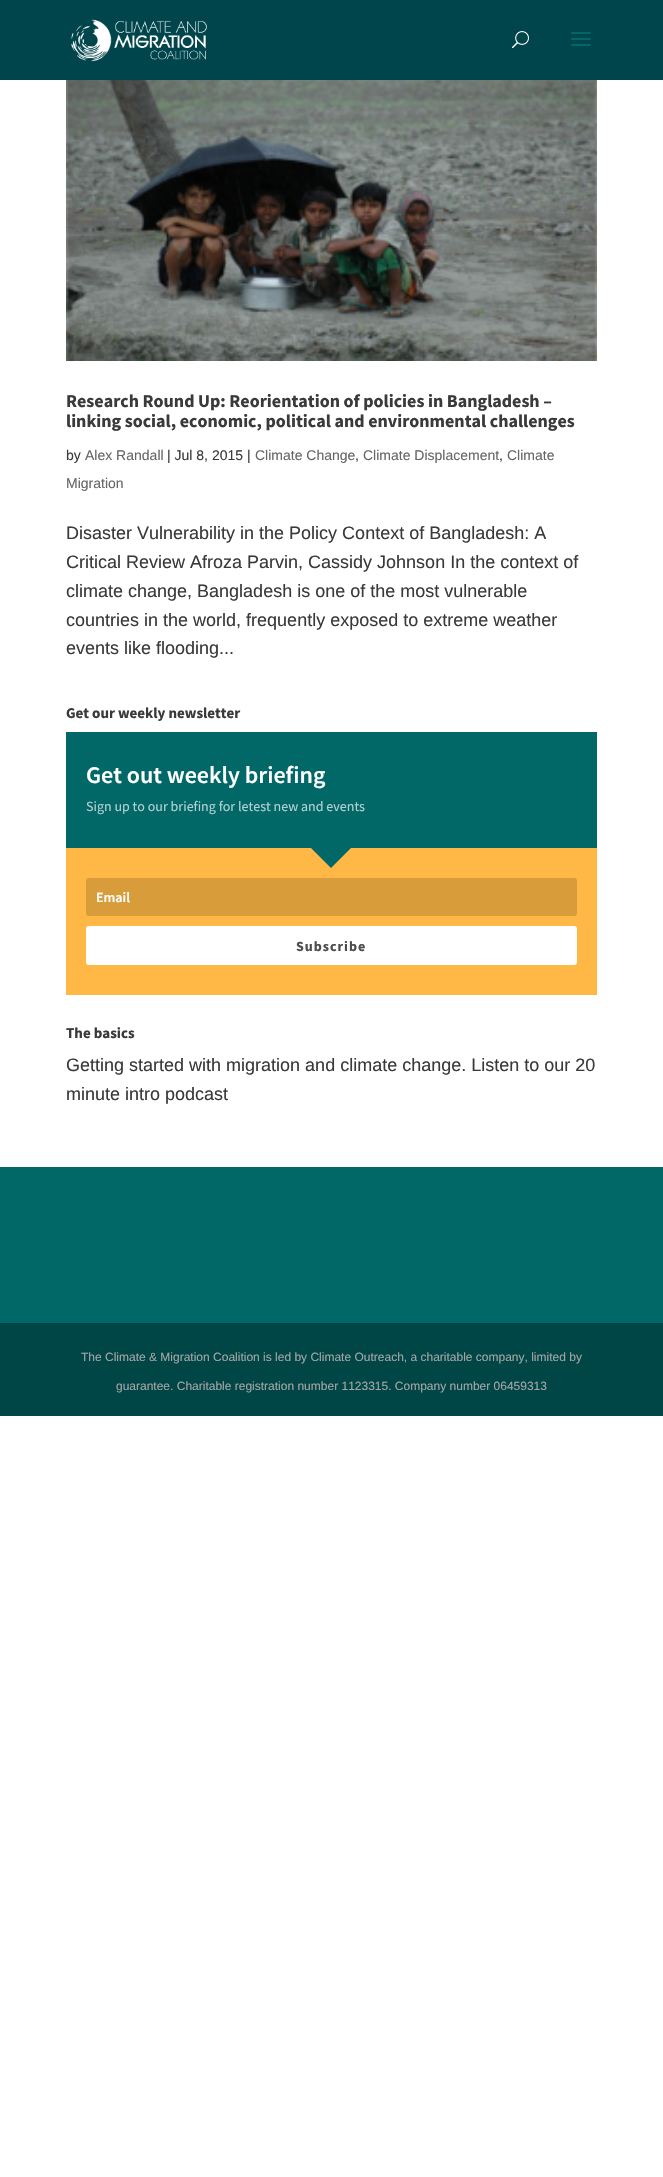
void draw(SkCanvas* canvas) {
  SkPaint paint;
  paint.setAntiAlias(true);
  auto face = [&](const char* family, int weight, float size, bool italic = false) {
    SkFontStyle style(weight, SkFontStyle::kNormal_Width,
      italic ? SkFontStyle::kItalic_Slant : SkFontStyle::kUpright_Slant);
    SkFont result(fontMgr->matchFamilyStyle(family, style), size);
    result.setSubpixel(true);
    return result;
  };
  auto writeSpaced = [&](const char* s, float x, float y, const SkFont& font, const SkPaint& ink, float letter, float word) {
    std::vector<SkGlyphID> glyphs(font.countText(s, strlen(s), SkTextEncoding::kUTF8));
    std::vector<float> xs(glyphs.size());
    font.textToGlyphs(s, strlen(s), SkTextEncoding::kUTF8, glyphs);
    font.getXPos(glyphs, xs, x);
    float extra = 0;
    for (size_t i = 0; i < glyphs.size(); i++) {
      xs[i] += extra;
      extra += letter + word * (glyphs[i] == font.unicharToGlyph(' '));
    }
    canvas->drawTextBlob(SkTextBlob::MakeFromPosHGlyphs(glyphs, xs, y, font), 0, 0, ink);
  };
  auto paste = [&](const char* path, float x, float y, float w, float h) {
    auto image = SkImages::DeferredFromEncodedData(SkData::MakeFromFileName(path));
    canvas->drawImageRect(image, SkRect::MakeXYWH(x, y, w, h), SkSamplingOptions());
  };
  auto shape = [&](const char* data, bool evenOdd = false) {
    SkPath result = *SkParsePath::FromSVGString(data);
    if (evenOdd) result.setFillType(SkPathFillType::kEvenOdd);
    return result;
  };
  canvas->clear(0xffffffff);
  paint.setColor(0xff00444c);
  canvas->drawRect(SkRect::MakeXYWH(0, 0, 663, 80), paint);
  paste("img/1.png", 71, 19, 136, 43);
  paste("img/2.png", 512, 31, 17, 18);
  paste("img/3.png", 571, 32, 20, 14);
  paste("img/4.png", 66, 80, 531, 281);
  paint.setColor(0xff016767);
  canvas->drawRect(SkRect::MakeXYWH(66, 732, 531, 116), paint);
  paint.setColor(0xffffb845);
  canvas->drawRect(SkRect::MakeXYWH(66, 848, 531, 147), paint);
  paint.setColor(0xff016767);
  canvas->drawPath(shape("M311 848H351L331 868Z"), paint);
  paint.setColor(0xffd99c3b);
  canvas->drawRoundRect(SkRect::MakeXYWH(86, 878, 491, 38), 3, 3, paint);
  paint.setColor(0xffffffff);
  canvas->drawRoundRect(SkRect::MakeXYWH(86, 926, 491, 39), 3, 3, paint);
  paint.setColor(0xff016767);
  canvas->drawRect(SkRect::MakeXYWH(0, 1167, 663, 156), paint);
  paint.setColor(0xff014646);
  canvas->drawRect(SkRect::MakeXYWH(0, 1323, 663, 93), paint);
  auto f0 = face("Source Sans Pro", 700, 18);
  paint.setColor(0xff3a3a3a);
  canvas->drawString("Research Round Up: Reorientation of policies in Bangladesh –", 66, 407, f0, paint);
  canvas->drawString("linking social, economic, political and environmental challenges", 66, 427, f0, paint);
  auto f1 = face("Liberation Sans", 400, 14);
  canvas->drawString("by", 66, 460, f1, paint);
  paint.setColor(0xff666666);
  canvas->drawString("Alex Randall", 85, 460, f1, paint);
  paint.setColor(0xff3a3a3a);
  canvas->drawString("| Jul 8, 2015 |", 167, 460, f1, paint);
  paint.setColor(0xff666666);
  canvas->drawString("Climate Change", 255, 460, f1, paint);
  paint.setColor(0xff3a3a3a);
  canvas->drawString(",", 355, 460, f1, paint);
  paint.setColor(0xff666666);
  canvas->drawString("Climate Displacement", 363, 460, f1, paint);
  paint.setColor(0xff3a3a3a);
  canvas->drawString(",", 499, 460, f1, paint);
  paint.setColor(0xff666666);
  canvas->drawString("Climate", 507, 460, f1, paint);
  canvas->drawString("Migration", 66, 488, f1, paint);
  auto f2 = face("Liberation Sans", 400, 18);
  paint.setColor(0xff3a3a3a);
  {
    const struct { const char* s; float x, y; } items[] = {
      {"Disaster Vulnerability in the Policy Context of Bangladesh: A", 66, 539},
      {"Critical Review Afroza Parvin, Cassidy Johnson In the context of", 66, 568},
      {"climate change, Bangladesh is one of the most vulnerable", 66, 597},
      {"countries in the world, frequently exposed to extreme weather", 66, 626},
      {"events like flooding...", 66, 654},
    };
    for (auto [s, x, y] : items) {
      canvas->drawString(s, x, y, f2, paint);
    }
  }
  auto f3 = face("Source Sans Pro", 700, 15);
  canvas->drawString("Get our weekly newsletter", 66, 718, f3, paint);
  auto f4 = face("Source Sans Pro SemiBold", 600, 24);
  paint.setColor(0xffffffff);
  canvas->drawString("Get out weekly briefing", 86, 783, f4, paint);
  auto f5 = face("Source Sans Pro", 400, 14);
  paint.setColor(0xffb3d1d1);
  canvas->drawString("Sign up to our briefing for letest new and events", 86, 811, f5, paint);
  auto f6 = face("Source Sans Pro SemiBold", 600, 14);
  paint.setColor(0xffffffff);
  canvas->drawString("Email", 96, 902, f6, paint);
  auto f7 = face("Source Sans Pro", 700, 14);
  paint.setColor(0xff4d4d4d);
  writeSpaced("Subscribe", 296, 951, f7, paint, 1, 0);
  paint.setColor(0xff3a3a3a);
  canvas->drawString("The basics", 66, 1038, f3, paint);
  canvas->drawString("Getting started with migration and climate change. Listen to our 20", 66, 1071, f2, paint);
  canvas->drawString("minute intro podcast", 66, 1100, f2, paint);
  auto f8 = face("Liberation Sans", 400, 12);
  paint.setColor(0xffa5a5a5);
  canvas->drawString("The Climate & Migration Coalition is led by Climate Outreach, a charitable company, limited by", 81, 1361, f8, paint);
  canvas->drawString("guarantee. Charitable registration number 1123315. Company number 06459313", 116, 1390, f8, paint);
}
